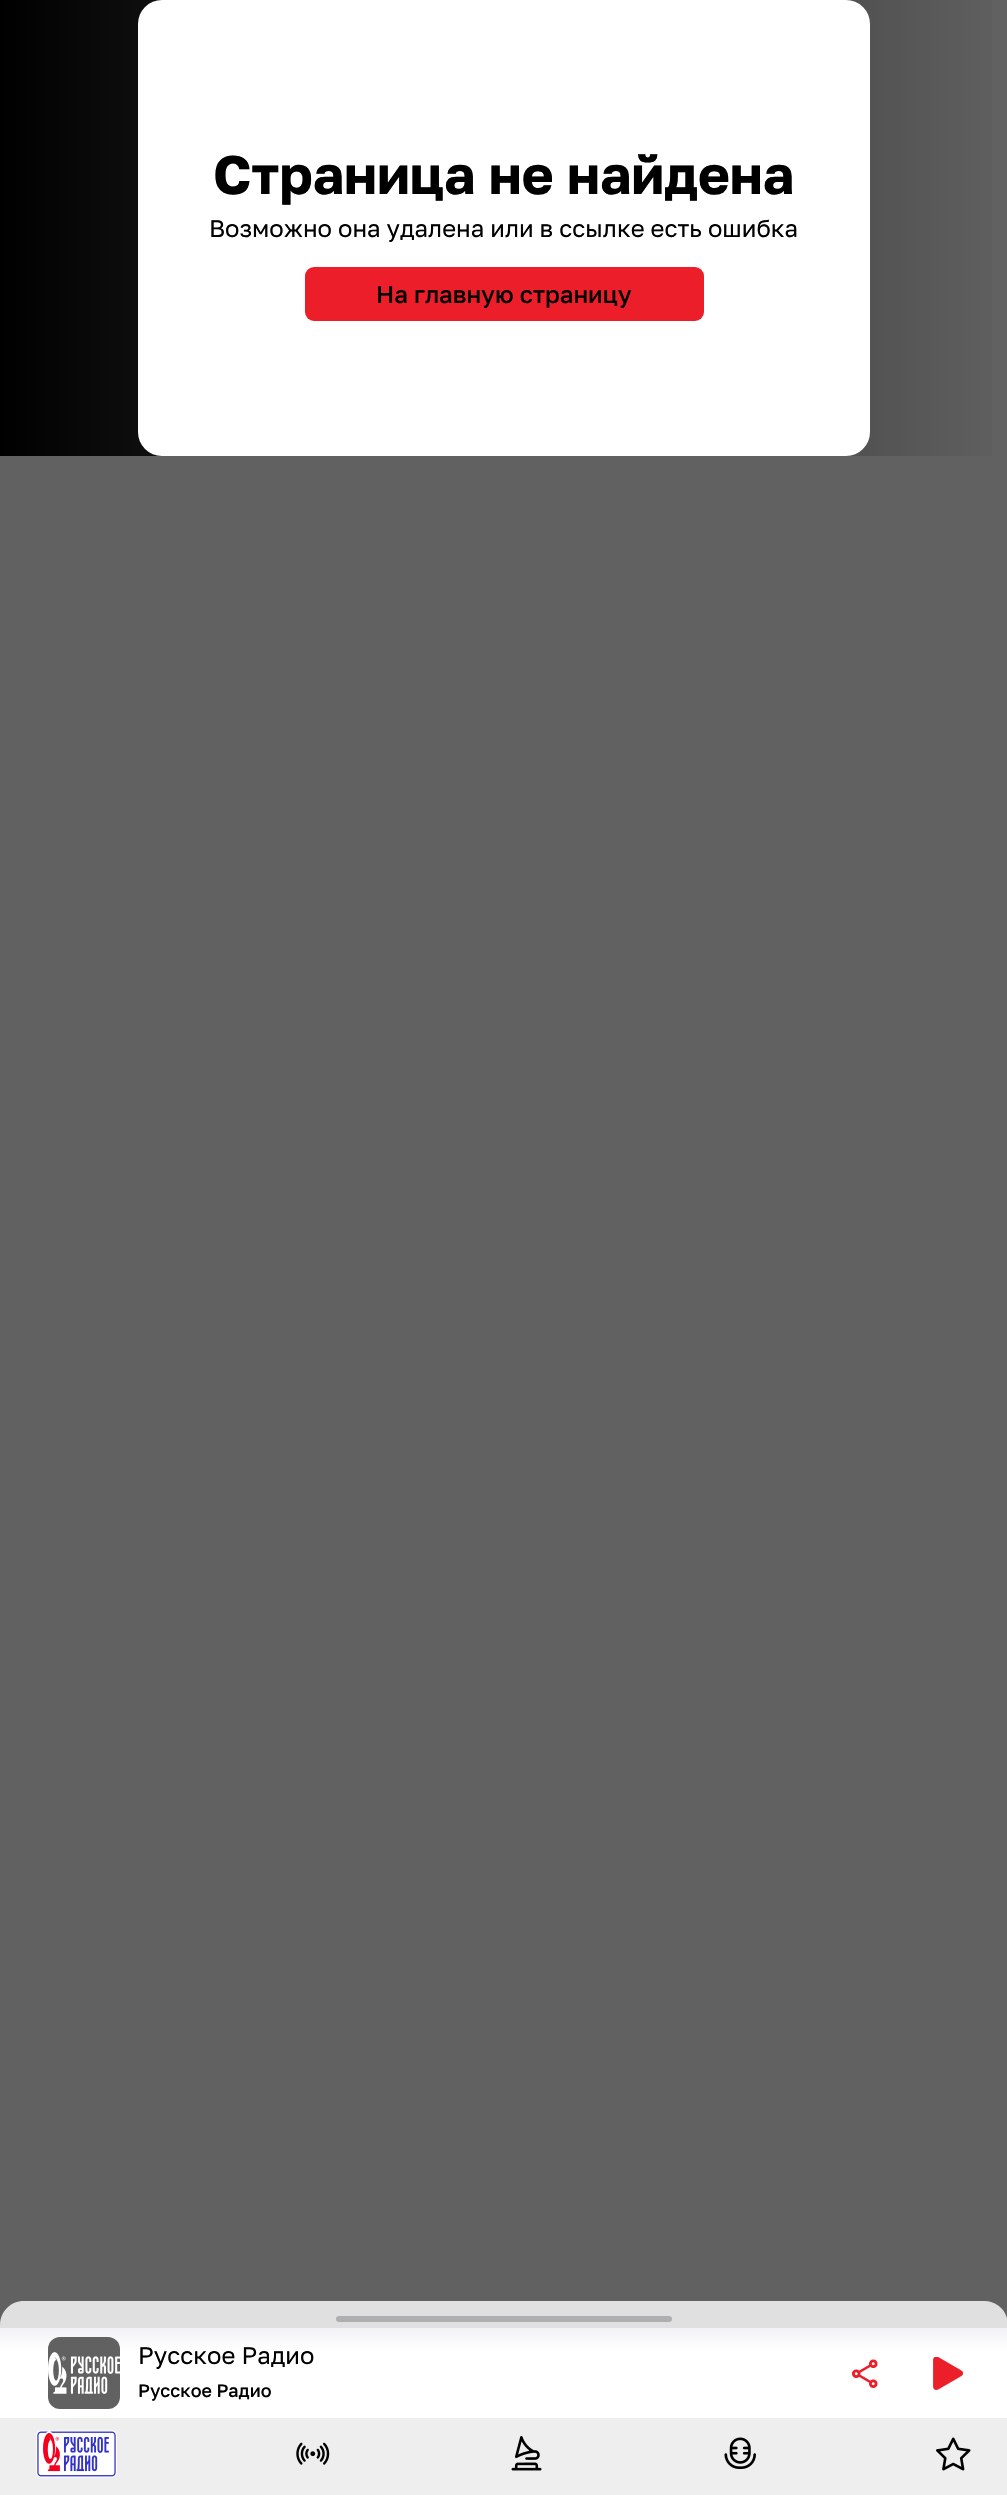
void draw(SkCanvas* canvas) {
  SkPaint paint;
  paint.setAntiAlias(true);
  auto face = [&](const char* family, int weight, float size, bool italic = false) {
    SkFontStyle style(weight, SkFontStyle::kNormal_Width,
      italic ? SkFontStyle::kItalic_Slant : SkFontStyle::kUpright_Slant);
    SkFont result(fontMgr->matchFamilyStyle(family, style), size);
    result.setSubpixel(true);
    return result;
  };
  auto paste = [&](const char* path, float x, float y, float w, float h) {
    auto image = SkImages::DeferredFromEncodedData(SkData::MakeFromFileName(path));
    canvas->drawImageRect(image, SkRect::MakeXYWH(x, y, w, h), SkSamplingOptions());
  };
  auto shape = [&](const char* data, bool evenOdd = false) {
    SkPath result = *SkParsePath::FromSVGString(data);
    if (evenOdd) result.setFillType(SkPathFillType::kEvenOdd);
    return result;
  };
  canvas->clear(0xff616161);
  {
    const SkColor colors[] = {0xff000000, 0xff606060};
    const float stops[] = {0, 1};
    const SkPoint ends[] = {{0, 228}, {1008, 228}};
    paint.setShader(SkGradientShader::MakeLinear(ends, colors, stops, 2, SkTileMode::kClamp));
    paint.setAlpha(255);
  }
  canvas->drawRect(SkRect::MakeXYWH(0, 0, 992, 456), paint);
  paint.setShader(nullptr);
  paint.setColor(0xffffffff);
  canvas->drawRoundRect(SkRect::MakeXYWH(138, 0, 732, 456), 24, 24, paint);
  paint.setColor(0xffec1e2a);
  canvas->drawRoundRect(SkRect::MakeXYWH(305, 267, 399, 54), 9, 9, paint);
  paint.setColor(0xffe0e0e0);
  canvas->drawPath(shape("M24 2301H984C997.5 2301 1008 2311.5 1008 2325V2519H0V2325C0 2311.5 10.5 2301 24 2301Z"), paint);
  paint.setColor(0xffeeeeee);
  canvas->drawRect(SkRect::MakeXYWH(0, 2418, 1007, 77), paint);
  paste("img/1.png", 36, 2430, 81, 48);
  paste("img/2.png", 296, 2442, 34, 23);
  paste("img/3.png", 511, 2436, 31, 35);
  paste("img/4.png", 724, 2437, 32, 32);
  paste("img/5.png", 936, 2437, 35, 34);
  paint.setColor(0xffafafb2);
  canvas->drawRoundRect(SkRect::MakeXYWH(336, 2316, 336, 6), 3, 3, paint);
  {
    const SkColor colors[] = {0xffffffff, 0xffffffff, 0xfff2f2f7};
    const float stops[] = {0, 0.75f, 1};
    const SkPoint ends[] = {{504, 2418}, {504, 2328}};
    paint.setShader(SkGradientShader::MakeLinear(ends, colors, stops, 3, SkTileMode::kClamp));
    paint.setAlpha(255);
  }
  canvas->drawRect(SkRect::MakeXYWH(0, 2328, 1007, 90), paint);
  paint.setShader(nullptr);
  paint.setColor(0xff616161);
  canvas->drawRoundRect(SkRect::MakeXYWH(48, 2337, 72, 72), 12, 12, paint);
  paste("img/6.png", 48, 2352, 72, 42);
  paste("img/7.png", 852, 2359, 26, 29);
  paste("img/8.png", 933, 2357, 31, 33);
  auto f0 = face("Golos Text", 700, 54);
  paint.setColor(0xff000000);
  canvas->drawString("Страница не найдена", 213, 194, f0, paint);
  auto f1 = face("Golos Text", 400, 24);
  canvas->drawString("Возможно она удалена или в ссылке есть ошибка", 209, 237, f1, paint);
  auto f2 = face("Golos Text", 500, 24);
  canvas->drawString("На главную страницу", 376, 303, f2, paint);
  canvas->drawString("Русское Радио", 138, 2364, f1, paint);
  auto f3 = face("Golos Text", 500, 18);
  canvas->drawString("Русское Радио", 138, 2397, f3, paint);
}
